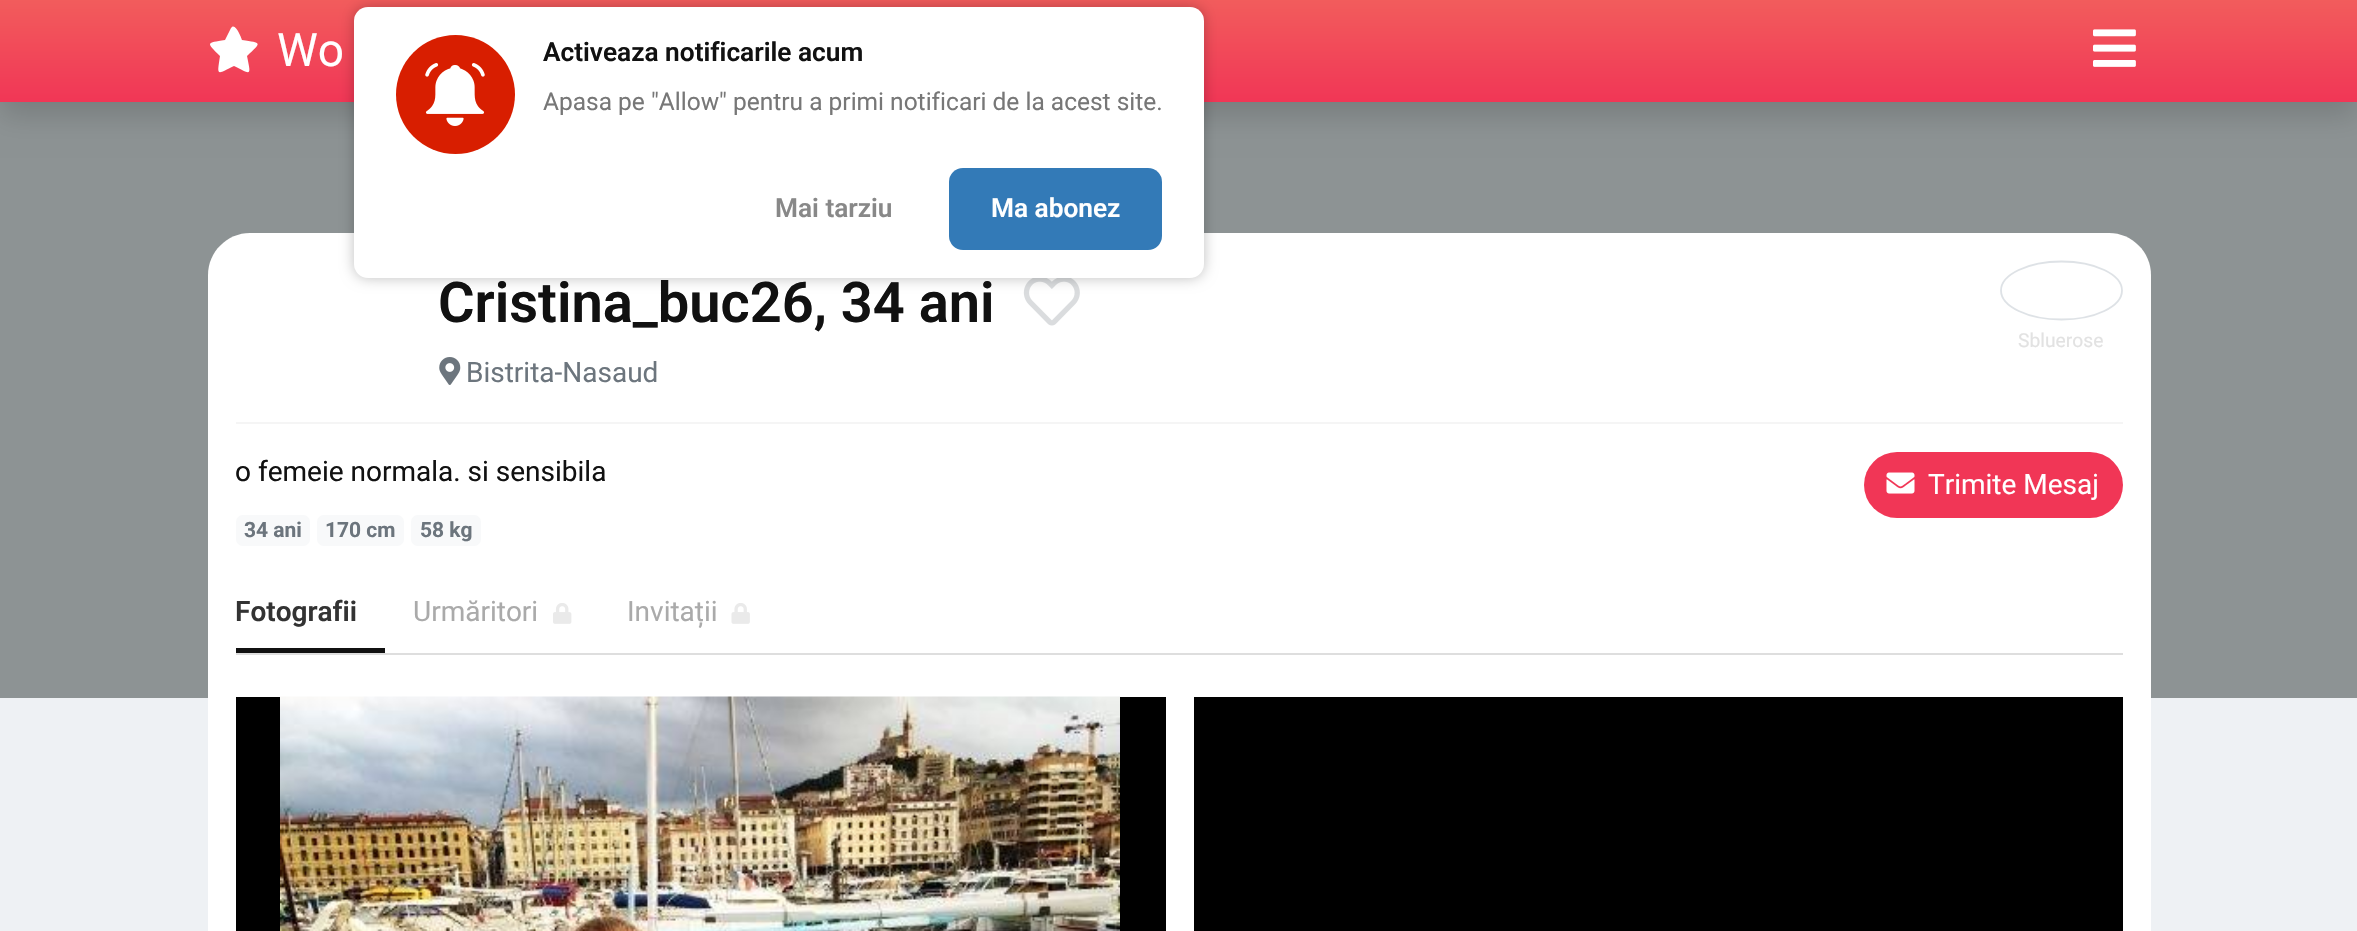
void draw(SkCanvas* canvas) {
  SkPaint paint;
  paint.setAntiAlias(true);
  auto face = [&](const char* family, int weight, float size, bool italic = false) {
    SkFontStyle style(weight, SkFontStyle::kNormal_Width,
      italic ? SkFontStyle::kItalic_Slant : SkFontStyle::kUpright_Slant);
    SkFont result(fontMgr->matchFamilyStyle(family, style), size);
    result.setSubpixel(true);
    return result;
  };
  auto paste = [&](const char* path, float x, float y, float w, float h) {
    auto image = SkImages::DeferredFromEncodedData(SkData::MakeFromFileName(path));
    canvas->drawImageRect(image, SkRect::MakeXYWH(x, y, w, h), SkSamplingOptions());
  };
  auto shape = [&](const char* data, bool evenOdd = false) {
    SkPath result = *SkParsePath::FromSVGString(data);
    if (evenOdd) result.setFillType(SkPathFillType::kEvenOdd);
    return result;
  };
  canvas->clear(0xffeef1f4);
  {
    const SkColor colors[] = {0xfff25c5c, 0xfff13656};
    const float stops[] = {0, 1};
    const SkPoint ends[] = {{1179, 0}, {1179, 102}};
    paint.setShader(SkGradientShader::MakeLinear(ends, colors, stops, 2, SkTileMode::kClamp));
    paint.setAlpha(255);
  }
  canvas->drawRect(SkRect::MakeXYWH(0, 0, 2357, 102), paint);
  paint.setShader(nullptr);
  paint.setColor(0xff8d9394);
  canvas->drawRect(SkRect::MakeXYWH(0, 102, 2357, 596), paint);
  canvas->save();
  canvas->clipPath(shape("M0 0H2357V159H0ZM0 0H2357V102H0Z", true), true);
  paint.setColor(0x26000000);
  paint.setMaskFilter(SkMaskFilter::MakeBlur(kNormal_SkBlurStyle, 14));
  canvas->drawRect(SkRect::MakeXYWH(0, 14, 2357, 102), paint);
  paint.setMaskFilter(nullptr);
  canvas->restore();
  paint.setColor(0xffffffff);
  canvas->drawPath(shape("M231 28C235 21 242 39 242 40C262 43 262 42 247 56C251 76 252 75 234 66C216 75 217 76 220 56C206 42 206 43 225 40Z"), paint);
  paste("img/1.png", 2093, 29, 43, 38);
  canvas->drawPath(shape("M250 233H2109C2132 233 2151 252 2151 275V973H208V275C208 252 227 233 250 233Z"), paint);
  paint.setColor(0xfff5f5f5);
  canvas->drawRect(SkRect::MakeXYWH(236, 422, 1887, 2), paint);
  paste("img/2.png", 1023, 278, 57, 48);
  paste("img/3.png", 439, 357, 22, 28);
  paint.setStroke(true);
  paint.setStrokeWidth(1.8f);
  paint.setColor(0xffdee2e6);
  canvas->drawPath(shape("M2061.5 261.5C2095 261.5 2122 274.5 2122 290.5C2122 306.5 2095 319.5 2061.5 319.5C2028 319.5 2001 306.5 2001 290.5C2001 274.5 2028 261.5 2061.5 261.5Z"), paint);
  paint.setStroke(false);
  paint.setColor(0xfff8f9fa);
  canvas->drawRoundRect(SkRect::MakeXYWH(236, 515, 74, 31), 7, 7, paint);
  canvas->drawRoundRect(SkRect::MakeXYWH(317, 515, 87, 31), 7, 7, paint);
  canvas->drawRoundRect(SkRect::MakeXYWH(411, 515, 70, 31), 7, 7, paint);
  paint.setColor(0xfff13656);
  canvas->drawRoundRect(SkRect::MakeXYWH(1864, 452, 259, 66), 33, 33, paint);
  paste("img/4.png", 1886, 472, 29, 22);
  paint.setColor(0xffdedede);
  canvas->drawRect(SkRect::MakeXYWH(236, 653, 1887, 2), paint);
  paint.setColor(0xff111111);
  canvas->drawRect(SkRect::MakeXYWH(236, 648, 149, 5), paint);
  paste("img/5.png", 553, 603, 19, 21);
  paste("img/6.png", 731, 603, 19, 21);
  paint.setColor(0xff000000);
  canvas->drawRect(SkRect::MakeXYWH(236, 697, 930, 234), paint);
  paste("img/7.png", 280, 696, 840, 235);
  canvas->drawRect(SkRect::MakeXYWH(1194, 697, 929, 234), paint);
  paint.setColor(0x40000000);
  paint.setMaskFilter(SkMaskFilter::MakeBlur(kNormal_SkBlurStyle, 7));
  canvas->drawRoundRect(SkRect::MakeXYWH(354, 7, 850, 271), 14, 14, paint);
  paint.setMaskFilter(nullptr);
  paint.setColor(0xffffffff);
  canvas->drawRoundRect(SkRect::MakeXYWH(354, 7, 850, 271), 14, 14, paint);
  paint.setColor(0xffd81e00);
  canvas->drawCircle(455.5f, 94.5f, 59.5f, paint);
  paste("img/8.png", 425, 63, 60, 63);
  paint.setColor(0xff337ab7);
  canvas->drawRoundRect(SkRect::MakeXYWH(949, 168, 213, 82), 14, 14, paint);
  auto f0 = face("Roboto", 400, 46);
  paint.setColor(0xffffffff);
  canvas->drawString("Wo", 277, 66, f0, paint);
  auto f1 = face("Roboto", 600, 56);
  paint.setColor(0xff111111);
  canvas->drawString("Cristina_buc26, 34 ani", 438, 322, f1, paint);
  auto f2 = face("Roboto", 400, 28);
  paint.setColor(0xff6c757d);
  canvas->drawString("Bistrita-Nasaud", 466, 382, f2, paint);
  auto f3 = face("Roboto", 400, 19.25f);
  paint.setColor(0xffe2e2e2);
  canvas->drawString("Sbluerose", 2018, 347, f3, paint);
  paint.setColor(0xff111111);
  canvas->drawString("o femeie normala. si sensibila", 235, 481, f2, paint);
  auto f4 = face("Roboto", 700, 21);
  paint.setColor(0xff6c757d);
  {
    const struct { const char* s; float x, y; } items[] = {
      {"34 ani", 244, 537},
      {"170 cm", 325, 537},
      {"58 kg", 420, 537},
    };
    for (auto [s, x, y] : items) {
      canvas->drawString(s, x, y, f4, paint);
    }
  }
  paint.setColor(0xffffffff);
  canvas->drawString("Trimite Mesaj", 1928, 494, f2, paint);
  auto f5 = face("Roboto", 600, 28);
  paint.setColor(0xff333333);
  canvas->drawString("Fotografii", 235, 621, f5, paint);
  paint.setColor(0xffaaaaaa);
  canvas->drawString("Urmăritori", 413, 621, f2, paint);
  canvas->drawString("Invitații", 627, 621, f2, paint);
  auto f6 = face("Roboto", 600, 26.25f);
  paint.setColor(0xff111111);
  canvas->drawString("Activeaza notificarile acum", 543, 61, f6, paint);
  auto f7 = face("Roboto", 400, 24.5f);
  paint.setColor(0xff777777);
  canvas->drawString("Apasa pe \"Allow\" pentru a primi notificari de la acest site.", 543, 110, f7, paint);
  paint.setColor(0xff888888);
  canvas->drawString("Mai tarziu", 775, 217, f6, paint);
  paint.setColor(0xffffffff);
  canvas->drawString("Ma abonez", 991, 217, f6, paint);
}
